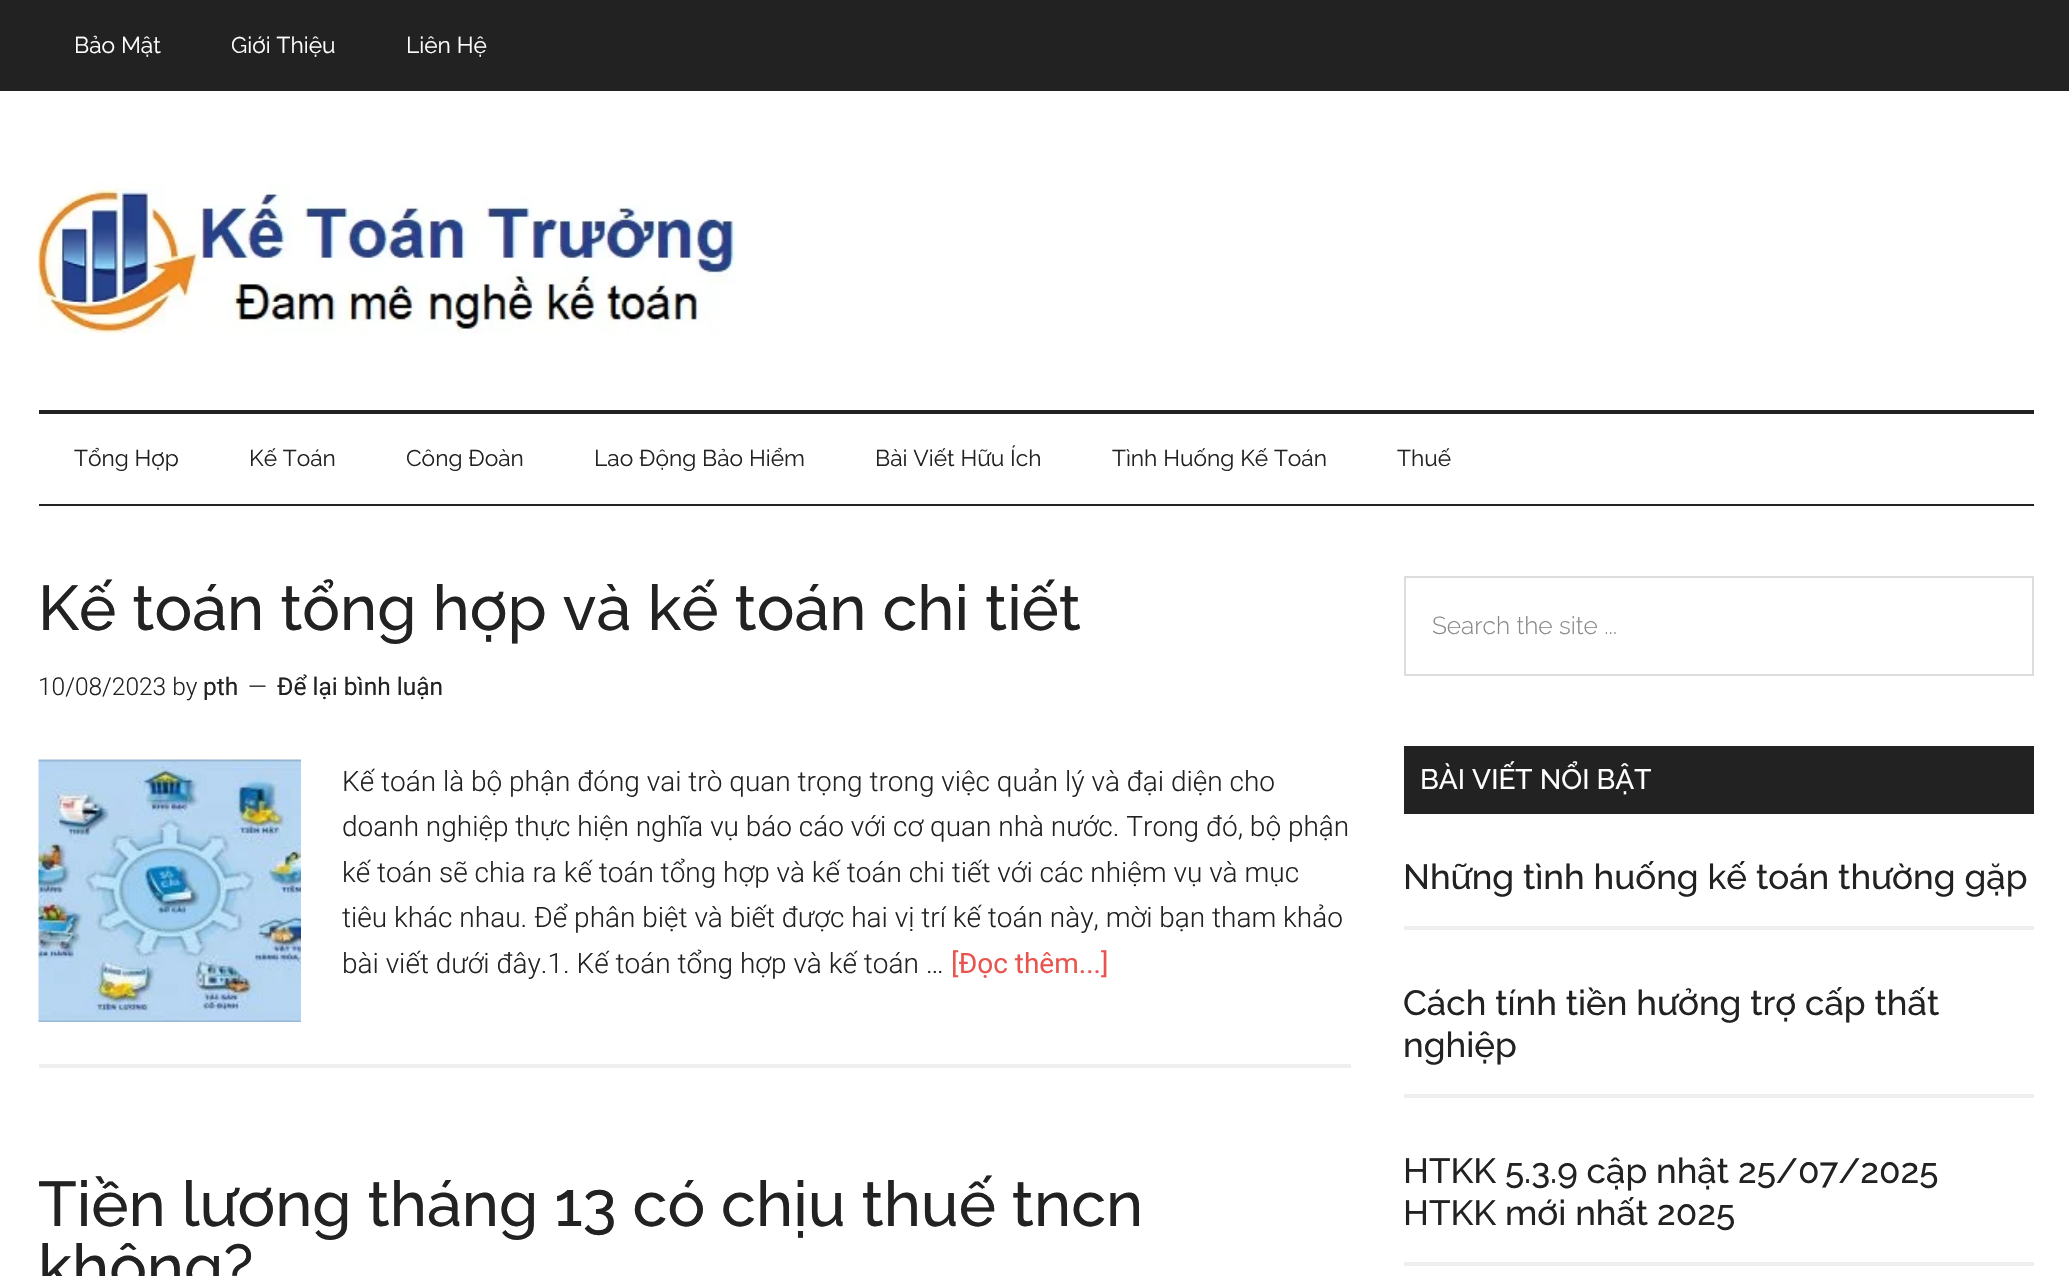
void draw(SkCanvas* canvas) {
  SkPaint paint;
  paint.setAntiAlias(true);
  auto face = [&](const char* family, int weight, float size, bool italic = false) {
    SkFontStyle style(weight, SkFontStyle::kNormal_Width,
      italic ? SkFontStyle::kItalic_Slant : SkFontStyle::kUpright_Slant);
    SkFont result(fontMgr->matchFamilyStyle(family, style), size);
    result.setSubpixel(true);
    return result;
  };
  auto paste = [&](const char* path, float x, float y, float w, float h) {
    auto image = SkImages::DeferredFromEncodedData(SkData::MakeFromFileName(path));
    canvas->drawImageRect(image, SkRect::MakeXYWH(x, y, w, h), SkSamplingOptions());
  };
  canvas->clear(0xffffffff);
  paint.setColor(0xff222222);
  canvas->drawRect(SkRect::MakeXYWH(0, 0, 2069, 91), paint);
  canvas->drawRect(SkRect::MakeXYWH(39, 410, 1995, 4), paint);
  paste("img/1.png", 38, 182, 698, 153);
  canvas->drawRect(SkRect::MakeXYWH(39, 504, 1995, 2), paint);
  paint.setColor(0xffeeeeee);
  canvas->drawRect(SkRect::MakeXYWH(39, 1064, 1312, 4), paint);
  paste("img/2.png", 38, 759, 263, 263);
  paint.setStroke(true);
  paint.setStrokeWidth(2);
  paint.setColor(0xffdddddd);
  canvas->drawRect(SkRect::MakeXYWH(1405, 577, 628, 98), paint);
  paint.setStroke(false);
  {
    const struct { float x, y, w, h; SkColor color; } items[] = {
      {1404, 746, 630, 68, 0xff222222},
      {1404, 926, 630, 4, 0xffeeeeee},
      {1404, 1094, 630, 4, 0xffeeeeee},
      {1404, 1262, 630, 4, 0xffeeeeee},
    };
    for (auto [x, y, w, h, color] : items) {
      paint.setColor(color);
      canvas->drawRect(SkRect::MakeXYWH(x, y, w, h), paint);
    }
  }
  auto f0 = face("Raleway", 400, 22.75f);
  paint.setColor(0xffffffff);
  {
    const struct { const char* s; float x, y; } items[] = {
      {"Bảo Mật", 74, 53},
      {"Giới Thiệu", 231, 53},
      {"Liên Hệ", 406, 53},
    };
    for (auto [s, x, y] : items) {
      canvas->drawString(s, x, y, f0, paint);
    }
  }
  paint.setColor(0xff222222);
  {
    const struct { const char* s; float x, y; } items[] = {
      {"Tổng Hợp", 74, 466},
      {"Kế Toán", 249, 466},
      {"Công Đoàn", 406, 466},
      {"Lao Động Bảo Hiểm", 594, 466},
      {"Bài Viết Hữu Ích", 875, 466},
      {"Tình Huống Kế Toán", 1112, 466},
      {"Thuế", 1397, 466},
    };
    for (auto [s, x, y] : items) {
      canvas->drawString(s, x, y, f0, paint);
    }
  }
  auto f1 = face("Raleway", 500, 63);
  canvas->drawString("Kế toán tổng hợp và kế toán chi tiết", 38, 630, f1, paint);
  auto f2 = face("Roboto", 300, 24.5f);
  canvas->drawString("10/08/2023 by", 38, 695, f2, paint);
  auto f3 = face("Roboto", 400, 24.5f);
  canvas->drawString("pth", 203, 695, f3, paint);
  canvas->drawString("—", 248, 695, f2, paint);
  canvas->drawString("Để lại bình luận", 277, 695, f3, paint);
  auto f4 = face("Roboto", 300, 28);
  {
    const struct { const char* s; float x, y; } items[] = {
      {"Kế toán là bộ phận đóng vai trò quan trọng trong việc quản lý và đại diện cho", 342, 791},
      {"doanh nghiệp thực hiện nghĩa vụ báo cáo với cơ quan nhà nước. Trong đó, bộ phận", 342, 836},
      {"kế toán sẽ chia ra kế toán tổng hợp và kế toán chi tiết với các nhiệm vụ và mục", 342, 882},
      {"tiêu khác nhau. Để phân biệt và biết được hai vị trí kế toán này, mời bạn tham khảo", 342, 927},
      {"bài viết dưới đây.1. Kế toán tổng hợp và kế toán …", 342, 973},
    };
    for (auto [s, x, y] : items) {
      canvas->drawString(s, x, y, f4, paint);
    }
  }
  auto f5 = face("Roboto", 400, 28);
  paint.setColor(0xffe8554e);
  canvas->drawString("[Đọc thêm...]", 951, 973, f5, paint);
  paint.setColor(0xff222222);
  canvas->drawString("Tiền lương tháng 13 có chịu thuế tncn", 38, 1226, f1, paint);
  canvas->drawString("không?", 38, 1289, f1, paint);
  auto f6 = face("Raleway", 300, 24.5f);
  paint.setColor(0xff888888);
  canvas->drawString("Search the site ...", 1432, 634, f6, paint);
  auto f7 = face("Raleway", 500, 28);
  paint.setColor(0xffffffff);
  canvas->drawString("BÀI VIẾT NỔI BẬT", 1420, 789, f7, paint);
  auto f8 = face("Raleway", 500, 35);
  paint.setColor(0xff222222);
  {
    const struct { const char* s; float x, y; } items[] = {
      {"Những tình huống kế toán thường gặp", 1403, 889},
      {"Cách tính tiền hưởng trợ cấp thất", 1403, 1015},
      {"nghiệp", 1403, 1057},
      {"HTKK 5.3.9 cập nhật 25/07/2025", 1403, 1183},
      {"HTKK mới nhất 2025", 1403, 1225},
    };
    for (auto [s, x, y] : items) {
      canvas->drawString(s, x, y, f8, paint);
    }
  }
}
